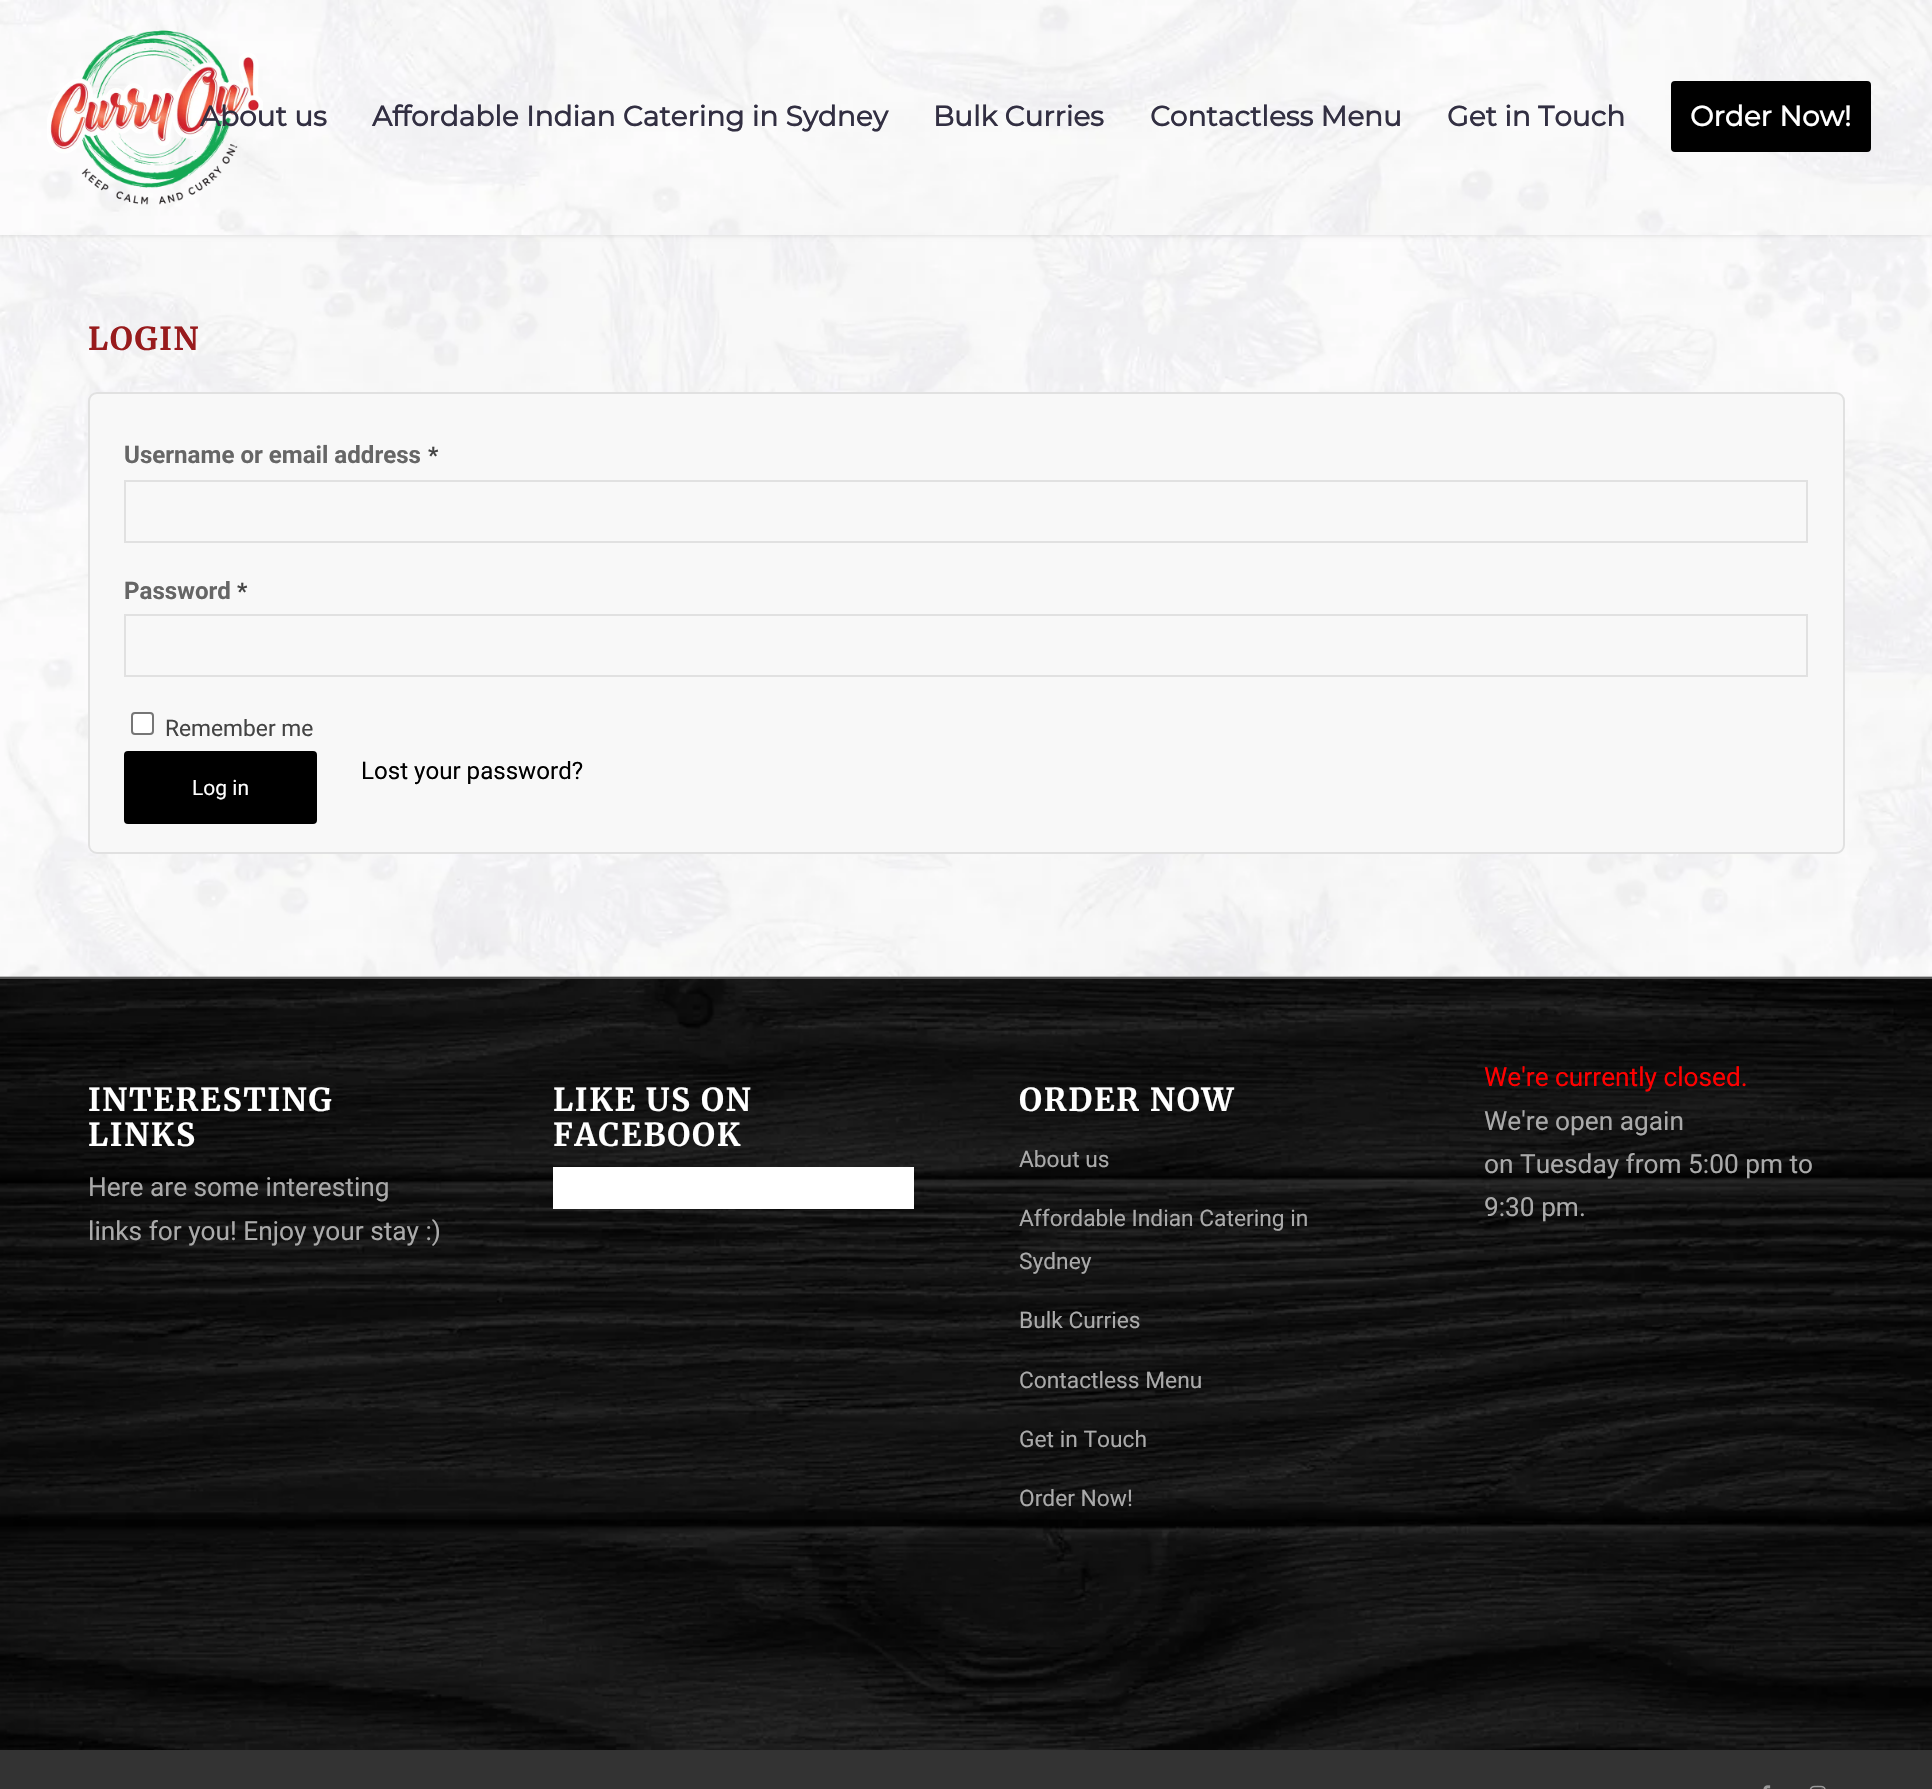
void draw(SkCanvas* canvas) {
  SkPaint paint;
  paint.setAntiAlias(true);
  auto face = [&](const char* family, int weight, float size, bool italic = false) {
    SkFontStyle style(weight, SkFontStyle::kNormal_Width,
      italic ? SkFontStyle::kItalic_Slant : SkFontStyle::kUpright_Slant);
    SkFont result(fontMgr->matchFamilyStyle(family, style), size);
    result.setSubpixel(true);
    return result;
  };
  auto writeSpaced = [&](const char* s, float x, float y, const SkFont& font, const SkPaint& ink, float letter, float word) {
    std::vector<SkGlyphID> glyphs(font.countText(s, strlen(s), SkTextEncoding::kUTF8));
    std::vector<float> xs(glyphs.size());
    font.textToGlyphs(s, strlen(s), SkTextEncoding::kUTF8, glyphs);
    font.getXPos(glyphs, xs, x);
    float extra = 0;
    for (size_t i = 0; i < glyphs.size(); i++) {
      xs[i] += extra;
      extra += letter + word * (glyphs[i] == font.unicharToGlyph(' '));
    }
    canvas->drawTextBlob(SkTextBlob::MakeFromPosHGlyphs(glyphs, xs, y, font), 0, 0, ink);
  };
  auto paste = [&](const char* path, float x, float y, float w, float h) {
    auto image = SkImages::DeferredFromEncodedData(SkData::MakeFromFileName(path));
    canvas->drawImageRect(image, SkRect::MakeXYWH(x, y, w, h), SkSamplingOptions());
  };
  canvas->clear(0xffffffff);
  paste("img/3.png", 0, 235, 1932, 742);
  paint.setColor(0x1a000000);
  paint.setMaskFilter(SkMaskFilter::MakeBlur(kNormal_SkBlurStyle, 2));
  canvas->drawRect(SkRect::MakeXYWH(-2, -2, 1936, 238), paint);
  paint.setMaskFilter(nullptr);
  paste("img/1.png", 0, 0, 1932, 235);
  paste("img/2.png", 47, 30, 216, 175);
  paint.setColor(0xff000000);
  canvas->drawRoundRect(SkRect::MakeXYWH(1673, 83, 196, 67), 2, 2, paint);
  paint.setStroke(true);
  paint.setStrokeWidth(4);
  canvas->drawRoundRect(SkRect::MakeXYWH(1673, 83, 196, 67), 2, 2, paint);
  paint.setStroke(false);
  paint.setColor(0xfff8f8f8);
  canvas->drawRoundRect(SkRect::MakeXYWH(89, 393, 1755, 460), 8, 8, paint);
  paint.setStroke(true);
  paint.setStrokeWidth(2);
  paint.setColor(0xffe1e1e1);
  canvas->drawRoundRect(SkRect::MakeXYWH(89, 393, 1755, 460), 8, 8, paint);
  canvas->drawRect(SkRect::MakeXYWH(125, 481, 1682, 61), paint);
  canvas->drawRect(SkRect::MakeXYWH(125, 615, 1682, 61), paint);
  paint.setStroke(false);
  paint.setColor(0xffffffff);
  canvas->drawRoundRect(SkRect::MakeXYWH(132, 713, 21, 21), 3, 3, paint);
  paint.setStroke(true);
  paint.setColor(0xff767676);
  canvas->drawRoundRect(SkRect::MakeXYWH(132, 713, 21, 21), 3, 3, paint);
  paint.setStroke(false);
  paint.setColor(0xff000000);
  canvas->drawRoundRect(SkRect::MakeXYWH(124, 751, 193, 73), 4, 4, paint);
  paste("img/4.png", 0, 976, 1932, 774);
  {
    const struct { float x, y, w, h; SkColor color; } items[] = {
      {0, 977, 1932, 2, 0xff555555},
      {553, 1167, 361, 42, 0xffffffff},
      {0, 1750, 1932, 39, 0xff333333},
    };
    for (auto [x, y, w, h, color] : items) {
      paint.setColor(color);
      canvas->drawRect(SkRect::MakeXYWH(x, y, w, h), paint);
    }
  }
  paste("img/5.png", 1763, 1785, 8, 4);
  paste("img/6.png", 1809, 1785, 17, 4);
  auto f0 = face("Montserrat", 700, 28);
  paint.setColor(0xff322f42);
  {
    const struct { const char* s; float x, y; } items[] = {
      {"About us", 200, 126},
      {"Affordable Indian Catering in Sydney", 372, 126},
      {"Bulk Curries", 933, 126},
      {"Contactless Menu", 1150, 126},
      {"Get in Touch", 1447, 126},
    };
    for (auto [s, x, y] : items) {
      canvas->drawString(s, x, y, f0, paint);
    }
  }
  paint.setColor(0xffffffff);
  canvas->drawString("Order Now!", 1690, 126, f0, paint);
  auto f1 = face("Merriweather", 700, 31.5f);
  paint.setColor(0xff981b1d);
  writeSpaced("LOGIN", 88, 350, f1, paint, 1.75f, 0);
  auto f2 = face("Roboto", 700, 24.1f);
  paint.setColor(0xff666666);
  canvas->drawString("Username or email address", 124, 463, f2, paint);
  auto f3 = face("Roboto", 700, 22.75f);
  paint.setColor(0xff444444);
  canvas->drawString("*", 428, 463, f3, paint);
  paint.setColor(0xff666666);
  canvas->drawString("Password", 124, 599, f2, paint);
  paint.setColor(0xff444444);
  canvas->drawString("*", 237, 599, f3, paint);
  auto f4 = face("Roboto", 400, 22.75f);
  canvas->drawString("Remember me", 165, 736, f4, paint);
  auto f5 = face("Roboto", 400, 21);
  paint.setColor(0xffffffff);
  canvas->drawString("Log in", 192, 795, f5, paint);
  auto f6 = face("Roboto", 400, 24.1f);
  paint.setColor(0xff000000);
  canvas->drawString("Lost your password?", 361, 779, f6, paint);
  paint.setColor(0xffffffff);
  writeSpaced("INTERESTING", 88, 1111, f1, paint, 1.75f, 0);
  writeSpaced("LINKS", 88, 1146, f1, paint, 1.75f, 0);
  auto f7 = face("Roboto", 400, 26.25f);
  paint.setColor(0xffaaaaaa);
  canvas->drawString("Here are some interesting", 88, 1196, f7, paint);
  canvas->drawString("links for you! Enjoy your stay :)", 88, 1240, f7, paint);
  paint.setColor(0xffffffff);
  {
    const struct { const char* s; float x, y; } items[] = {
      {"LIKE US ON", 553, 1111},
      {"FACEBOOK", 553, 1146},
      {"ORDER NOW", 1019, 1111},
    };
    for (auto [s, x, y] : items) {
      writeSpaced(s, x, y, f1, paint, 1.75f, 0);
    }
  }
  paint.setColor(0xffaaaaaa);
  {
    const struct { const char* s; float x, y; } items[] = {
      {"About us", 1019, 1167},
      {"Affordable Indian Catering in", 1019, 1226},
      {"Sydney", 1019, 1269},
      {"Bulk Curries", 1019, 1328},
      {"Contactless Menu", 1019, 1388},
      {"Get in Touch", 1019, 1447},
      {"Order Now!", 1019, 1506},
    };
    for (auto [s, x, y] : items) {
      canvas->drawString(s, x, y, f4, paint);
    }
  }
  paint.setColor(0xffff0000);
  canvas->drawString("We're currently closed.", 1484, 1086, f7, paint);
  paint.setColor(0xffaaaaaa);
  {
    const struct { const char* s; float x, y; } items[] = {
      {"We're open again", 1484, 1130},
      {"on Tuesday from 5:00 pm to", 1484, 1173},
      {"9:30 pm.", 1484, 1216},
    };
    for (auto [s, x, y] : items) {
      canvas->drawString(s, x, y, f7, paint);
    }
  }
}
